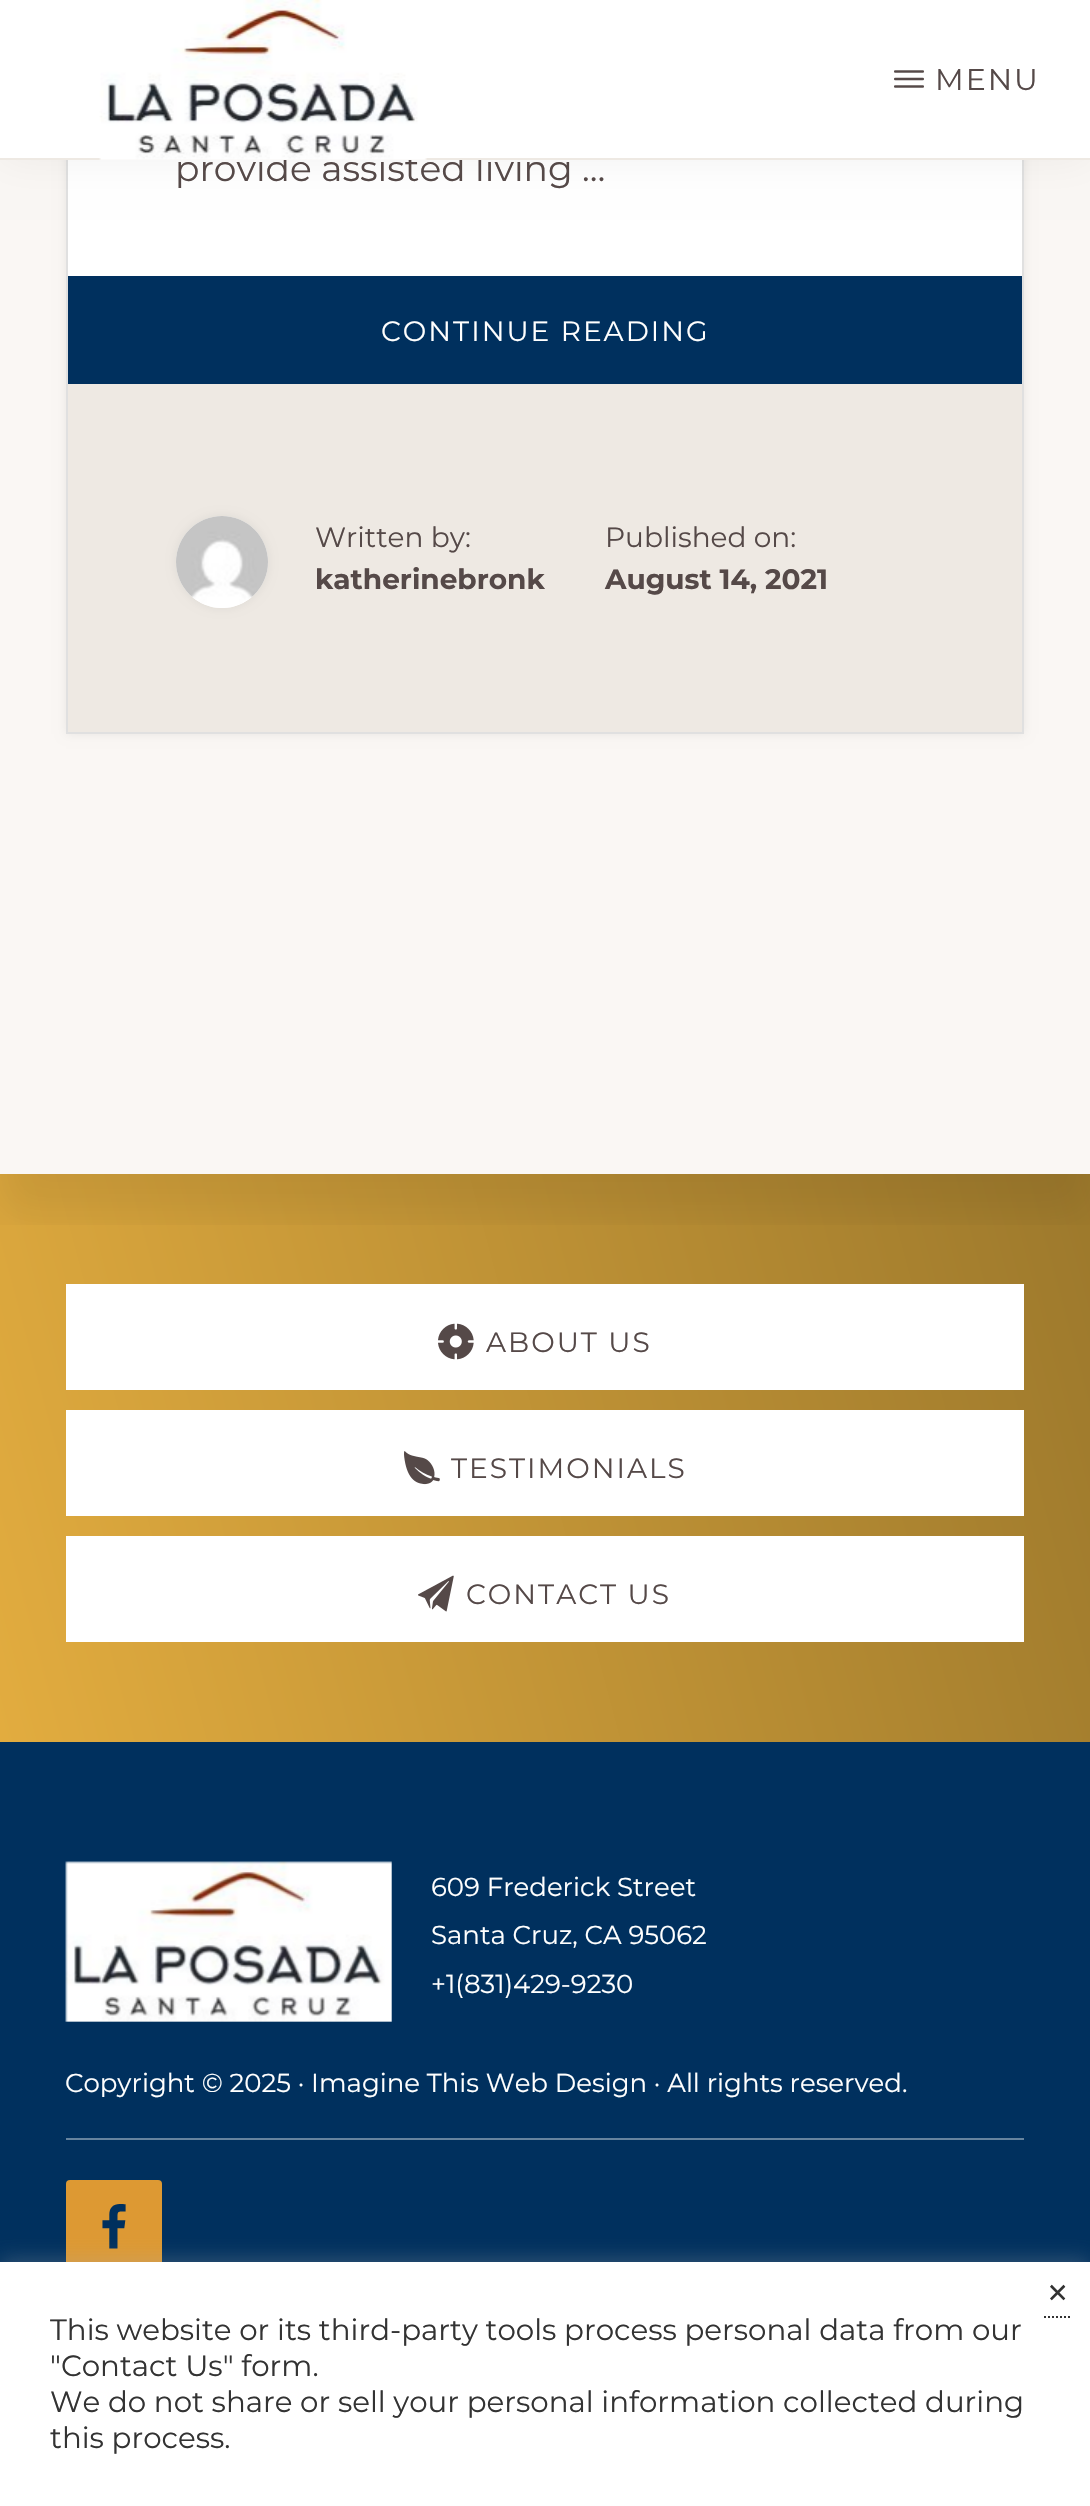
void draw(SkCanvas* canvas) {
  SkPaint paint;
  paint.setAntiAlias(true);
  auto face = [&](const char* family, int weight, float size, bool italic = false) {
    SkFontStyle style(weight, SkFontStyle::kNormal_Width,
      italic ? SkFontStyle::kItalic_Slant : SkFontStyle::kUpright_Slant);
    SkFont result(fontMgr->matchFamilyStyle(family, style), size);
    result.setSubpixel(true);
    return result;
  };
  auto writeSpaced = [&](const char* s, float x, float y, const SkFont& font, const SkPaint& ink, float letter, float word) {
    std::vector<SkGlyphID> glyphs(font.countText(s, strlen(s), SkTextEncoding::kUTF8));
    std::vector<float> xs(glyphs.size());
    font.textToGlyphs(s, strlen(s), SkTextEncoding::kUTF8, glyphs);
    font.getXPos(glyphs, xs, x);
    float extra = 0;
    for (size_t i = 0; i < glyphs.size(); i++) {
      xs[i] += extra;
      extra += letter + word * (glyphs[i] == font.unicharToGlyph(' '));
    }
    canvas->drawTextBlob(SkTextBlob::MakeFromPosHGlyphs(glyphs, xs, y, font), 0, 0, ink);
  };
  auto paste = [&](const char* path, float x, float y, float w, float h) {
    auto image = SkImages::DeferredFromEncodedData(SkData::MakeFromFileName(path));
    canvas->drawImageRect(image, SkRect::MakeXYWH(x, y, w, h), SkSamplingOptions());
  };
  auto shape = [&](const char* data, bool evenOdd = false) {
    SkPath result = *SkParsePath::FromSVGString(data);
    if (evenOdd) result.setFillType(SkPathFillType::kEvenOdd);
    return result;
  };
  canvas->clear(0xfffaf7f4);
  {
    const SkColor colors[] = {0xffe2ac3f, 0xff9d792c};
    const float stops[] = {0, 1};
    const SkPoint ends[] = {{-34, 1613}, {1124, 1303}};
    paint.setShader(SkGradientShader::MakeLinear(ends, colors, stops, 2, SkTileMode::kClamp));
    paint.setAlpha(255);
  }
  canvas->drawRect(SkRect::MakeXYWH(0, 1174, 1090, 568), paint);
  canvas->save();
  canvas->clipRect(SkRect::MakeXYWH(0, 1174, 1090, 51));
  paint.setShader(nullptr);
  paint.setColor(0x12000000);
  paint.setMaskFilter(SkMaskFilter::MakeBlur(kNormal_SkBlurStyle, 20));
  canvas->drawRect(SkRect::MakeXYWH(0, -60, 1090, 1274), paint);
  paint.setMaskFilter(nullptr);
  canvas->restore();
  paint.setMaskFilter(SkMaskFilter::MakeBlur(kNormal_SkBlurStyle, 5));
  canvas->drawRect(SkRect::MakeXYWH(66, -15, 958, 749), paint);
  paint.setMaskFilter(nullptr);
  paint.setColor(0xffffffff);
  canvas->drawRect(SkRect::MakeXYWH(68, 160, 954, 116), paint);
  paint.setStroke(true);
  paint.setStrokeWidth(2);
  paint.setColor(0xffe0e0e0);
  canvas->drawRect(SkRect::MakeXYWH(67, -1, 956, 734), paint);
  paint.setStroke(false);
  paint.setColor(0x0d000000);
  paint.setMaskFilter(SkMaskFilter::MakeBlur(kNormal_SkBlurStyle, 20));
  canvas->drawRect(SkRect::MakeXYWH(0, 0, 1090, 160), paint);
  paint.setMaskFilter(nullptr);
  paint.setColor(0xff00305e);
  canvas->drawRect(SkRect::MakeXYWH(68, 276, 954, 108), paint);
  paint.setColor(0xffeee9e3);
  canvas->drawRect(SkRect::MakeXYWH(68, 384, 954, 348), paint);
  paint.setColor(0x12000000);
  paint.setMaskFilter(SkMaskFilter::MakeBlur(kNormal_SkBlurStyle, 5));
  canvas->drawRoundRect(SkRect::MakeXYWH(176, 516, 92, 92), 46, 46, paint);
  paint.setMaskFilter(nullptr);
  paint.setColor(0xffffffff);
  canvas->drawCircle(222, 562, 46, paint);
  paste("img/3.png", 176, 516, 92, 92);
  canvas->drawRect(SkRect::MakeXYWH(66, 1284, 958, 106), paint);
  paste("img/4.png", 438, 1323, 36, 37);
  canvas->drawRect(SkRect::MakeXYWH(66, 1410, 958, 106), paint);
  paste("img/5.png", 404, 1451, 36, 34);
  canvas->drawRect(SkRect::MakeXYWH(66, 1536, 958, 106), paint);
  paste("img/6.png", 418, 1575, 36, 37);
  paint.setColor(0xff00305e);
  canvas->drawRect(SkRect::MakeXYWH(0, 1742, 1090, 520), paint);
  paint.setColor(0xff66839e);
  canvas->drawRect(SkRect::MakeXYWH(66, 2138, 958, 2), paint);
  paste("img/7.png", 65, 1861, 327, 161);
  paint.setColor(0xffdd9933);
  canvas->drawRoundRect(SkRect::MakeXYWH(66, 2180, 96, 96), 4, 4, paint);
  paste("img/8.png", 102, 2204, 24, 45);
  paint.setColor(0x4dacabab);
  paint.setMaskFilter(SkMaskFilter::MakeBlur(kNormal_SkBlurStyle, 10));
  canvas->drawRect(SkRect::MakeXYWH(0, 2260, 1090, 244), paint);
  paint.setMaskFilter(nullptr);
  paint.setColor(0xffffffff);
  canvas->drawRect(SkRect::MakeXYWH(0, 2262, 1090, 244), paint);
  paint.setStroke(true);
  paint.setColor(0xff333333);
  paint.setPathEffect(SkDashPathEffect::Make({{2, 2}}, 0));
  canvas->drawPath(shape("M1044 2317H1070"), paint);
  paint.setPathEffect(nullptr);
  auto f0 = face("Montserrat", 400, 36);
  paint.setStroke(false);
  paint.setColor(0xff554948);
  canvas->drawString("provide assisted living …", 175, 181, f0, paint);
  paint.setColor(0xffffffff);
  canvas->drawRect(SkRect::MakeXYWH(0, 0, 1090, 158), paint);
  auto f1 = face("Montserrat", 400, 30);
  paint.setColor(0xff554948);
  writeSpaced("MENU", 935, 90, f1, paint, 2, 0);
  paste("img/2.png", 894, 70, 30, 18);
  paint.setColor(0xffeee9e3);
  canvas->drawRect(SkRect::MakeXYWH(0, 158, 1090, 2), paint);
  paste("img/1.png", 99, 0, 328, 160);
  auto f2 = face("Montserrat", 400, 28);
  paint.setColor(0xffffffff);
  writeSpaced("CONTINUE READING", 381, 341, f2, paint, 2, 0);
  paint.setColor(0xff554948);
  canvas->drawString("Written by:", 315, 547, f2, paint);
  auto f3 = face("Montserrat", 700, 28);
  canvas->drawString("katherinebronk", 315, 589, f3, paint);
  canvas->drawString("Published on:", 605, 547, f2, paint);
  canvas->drawString("August 14, 2021", 605, 589, f3, paint);
  {
    const struct { const char* s; float x, y; } items[] = {
      {"ABOUT US", 486, 1352},
      {"TESTIMONIALS", 451, 1478},
      {"CONTACT US", 466, 1604},
    };
    for (auto [s, x, y] : items) {
      writeSpaced(s, x, y, f2, paint, 2, 0);
    }
  }
  auto f4 = face("Montserrat", 400, 26);
  paint.setColor(0xffffffff);
  {
    const struct { const char* s; float x, y; } items[] = {
      {"609 Frederick Street", 431, 1896},
      {"Santa Cruz, CA 95062", 431, 1944},
      {"+1(831)429-9230", 431, 1993},
      {"Copyright © 2025 · Imagine This Web Design · All rights reserved.", 65, 2092},
    };
    for (auto [s, x, y] : items) {
      canvas->drawString(s, x, y, f4, paint);
    }
  }
  auto f5 = face("Montserrat", 400, 44);
  paint.setColor(0xff333333);
  canvas->drawString("×", 1045, 2308, f5, paint);
  auto f6 = face("Montserrat", 400, 29.3f);
  {
    const struct { const char* s; float x, y; } items[] = {
      {"This website or its third-party tools process personal data from our", 50, 2340},
      {"\"Contact Us\" form.", 50, 2376},
      {"We do not share or sell your personal information collected during", 50, 2412},
      {"this process.", 50, 2448},
    };
    for (auto [s, x, y] : items) {
      canvas->drawString(s, x, y, f6, paint);
    }
  }
}
